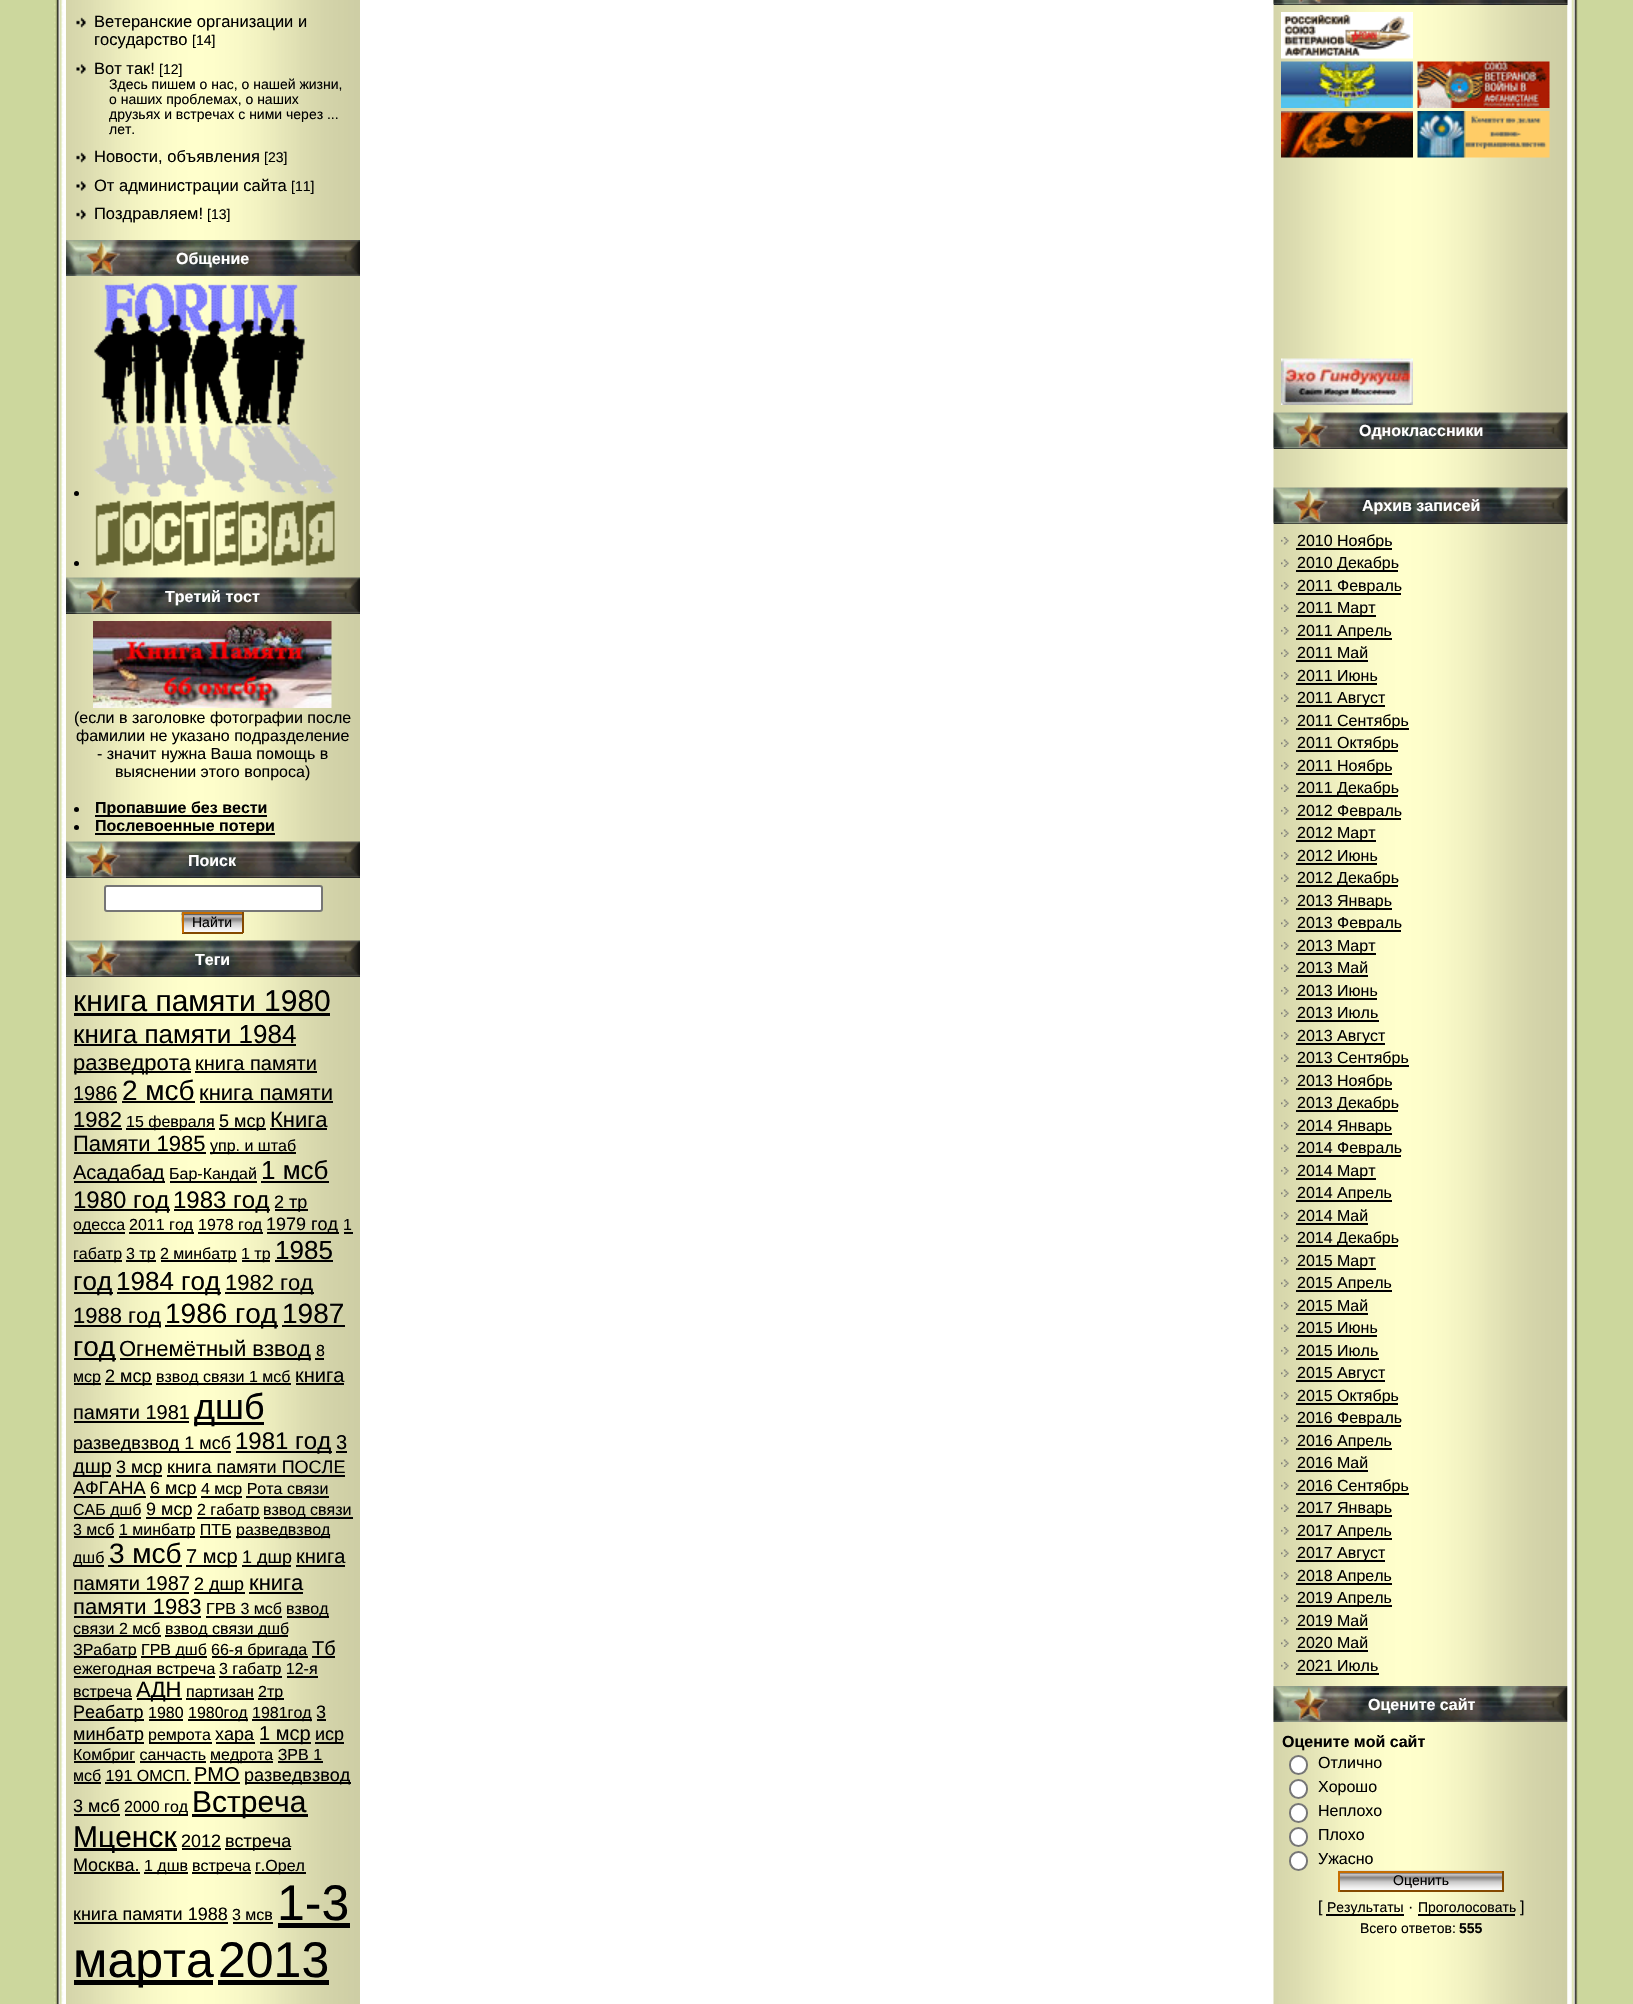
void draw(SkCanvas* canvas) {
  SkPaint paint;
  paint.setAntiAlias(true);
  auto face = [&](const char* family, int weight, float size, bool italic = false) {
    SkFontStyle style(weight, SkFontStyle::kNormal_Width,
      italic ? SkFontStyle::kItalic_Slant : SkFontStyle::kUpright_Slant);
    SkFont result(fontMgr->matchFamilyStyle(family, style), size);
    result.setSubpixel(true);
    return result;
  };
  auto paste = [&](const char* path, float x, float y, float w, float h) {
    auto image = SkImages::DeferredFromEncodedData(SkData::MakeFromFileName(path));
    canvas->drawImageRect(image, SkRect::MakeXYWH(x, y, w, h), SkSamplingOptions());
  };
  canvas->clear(0xffffffff);
  paint.setColor(0xffccd79d);
  canvas->drawRect(SkRect::MakeXYWH(0, 0, 54, 2004), paint);
  paste("img/1.png", 54, 0, 12, 2004);
  paste("img/2.png", 66, 0, 294, 2004);
  paste("img/3.png", 76, 17, 10, 11);
  paste("img/4.png", 76, 64, 10, 10);
  paste("img/3.png", 76, 152, 10, 11);
  paste("img/5.png", 76, 181, 10, 10);
  paste("img/6.png", 76, 209, 10, 11);
  paste("img/7.png", 66, 240, 294, 36);
  paint.setColor(0xff000000);
  canvas->drawCircle(76.5f, 493.5f, 2.5f, paint);
  paste("img/8.png", 94, 283, 244, 214);
  canvas->drawCircle(76.5f, 563.5f, 2.5f, paint);
  paste("img/9.png", 95, 500, 240, 66);
  canvas->drawRect(SkRect::MakeXYWH(66, 613, 294, 1), paint);
  paste("img/10.png", 66, 577, 294, 37);
  paste("img/11.png", 93, 621, 239, 87);
  canvas->drawCircle(76.5f, 809.5f, 2.5f, paint);
  canvas->drawRect(SkRect::MakeXYWH(95, 815, 172, 2), paint);
  canvas->drawCircle(76.5f, 827.5f, 2.5f, paint);
  canvas->drawRect(SkRect::MakeXYWH(95, 833, 180, 2), paint);
  canvas->drawRect(SkRect::MakeXYWH(66, 877, 294, 1), paint);
  paste("img/12.png", 66, 841, 294, 37);
  paint.setColor(0xffffffff);
  canvas->drawRoundRect(SkRect::MakeXYWH(105, 886, 217, 25), 2, 2, paint);
  paint.setStroke(true);
  paint.setStrokeWidth(2);
  paint.setColor(0xff767676);
  canvas->drawRoundRect(SkRect::MakeXYWH(105, 886, 217, 25), 2, 2, paint);
  paste("img/13.png", 181, 912, 61, 21);
  paint.setStroke(false);
  {
    const struct { float x, y, w, h; SkColor color; } items[] = {
      {182, 912, 61, 2, 0xffc66d00},
      {242, 912, 2, 21, 0xff844900},
      {182, 932, 61, 2, 0xff844900},
      {182, 912, 2, 21, 0xffc66d00},
      {66, 976, 294, 1, 0xff000000},
    };
    for (auto [x, y, w, h, color] : items) {
      paint.setColor(color);
      canvas->drawRect(SkRect::MakeXYWH(x, y, w, h), paint);
    }
  }
  paste("img/10.png", 66, 940, 294, 37);
  {
    const struct { float x, y, w, h; SkColor color; } items[] = {
      {74, 1013, 256, 3, 0xff000000},
      {74, 1044, 222, 2, 0xff000000},
      {74, 1071, 117, 2, 0xff000000},
      {195, 1071, 122, 2, 0xff000000},
      {74, 1101, 43, 2, 0xff000000},
      {122, 1101, 73, 2, 0xff000000},
      {200, 1101, 133, 2, 0xff000000},
      {74, 1128, 48, 2, 0xff000000},
      {126, 1128, 89, 2, 0xff000000},
      {219, 1128, 47, 2, 0xff000000},
      {270, 1128, 57, 2, 0xff000000},
      {74, 1152, 132, 2, 0xff000000},
      {210, 1152, 86, 2, 0xff000000},
      {74, 1181, 91, 2, 0xff000000},
      {170, 1181, 87, 2, 0xff000000},
      {261, 1181, 68, 2, 0xff000000},
      {74, 1209, 96, 2, 0xff000000},
      {174, 1209, 96, 2, 0xff000000},
      {275, 1209, 33, 2, 0xff000000},
      {74, 1232, 51, 2, 0xff000000},
      {129, 1232, 65, 2, 0xff000000},
      {198, 1232, 65, 2, 0xff000000},
      {267, 1232, 72, 2, 0xff000000},
      {344, 1232, 9, 2, 0xff000000},
      {74, 1260, 48, 2, 0xff000000},
      {126, 1260, 30, 2, 0xff000000},
      {161, 1260, 76, 2, 0xff000000},
      {242, 1260, 28, 2, 0xff000000},
      {275, 1260, 58, 2, 0xff000000},
      {74, 1292, 39, 2, 0xff000000},
      {117, 1292, 104, 2, 0xff000000},
      {225, 1292, 89, 2, 0xff000000},
      {74, 1325, 87, 2, 0xff000000},
      {165, 1325, 113, 2, 0xff000000},
      {282, 1325, 63, 2, 0xff000000},
      {74, 1358, 42, 2, 0xff000000},
      {120, 1358, 191, 2, 0xff000000},
      {315, 1358, 9, 2, 0xff000000},
      {74, 1383, 27, 2, 0xff000000},
      {105, 1383, 47, 2, 0xff000000},
      {156, 1383, 135, 2, 0xff000000},
      {296, 1383, 48, 2, 0xff000000},
      {74, 1421, 115, 2, 0xff000000},
      {194, 1422, 70, 3, 0xff000000},
      {74, 1451, 157, 2, 0xff000000},
      {236, 1451, 96, 2, 0xff000000},
      {336, 1451, 11, 2, 0xff000000},
      {74, 1475, 37, 2, 0xff000000},
      {116, 1475, 46, 2, 0xff000000},
      {167, 1475, 178, 2, 0xff000000},
      {74, 1496, 72, 2, 0xff000000},
      {150, 1496, 47, 2, 0xff000000},
      {201, 1496, 41, 2, 0xff000000},
      {246, 1496, 83, 2, 0xff000000},
      {74, 1517, 67, 2, 0xff000000},
      {146, 1517, 46, 2, 0xff000000},
      {197, 1517, 63, 2, 0xff000000},
      {264, 1517, 89, 2, 0xff000000},
      {74, 1536, 40, 2, 0xff000000},
      {119, 1536, 76, 2, 0xff000000},
      {200, 1536, 31, 2, 0xff000000},
      {236, 1536, 94, 2, 0xff000000},
      {74, 1565, 30, 2, 0xff000000},
      {108, 1565, 74, 2, 0xff000000},
      {186, 1565, 51, 2, 0xff000000},
      {242, 1565, 49, 2, 0xff000000},
      {296, 1565, 49, 2, 0xff000000},
      {74, 1592, 115, 2, 0xff000000},
      {194, 1592, 51, 2, 0xff000000},
      {249, 1592, 54, 2, 0xff000000},
      {74, 1616, 127, 2, 0xff000000},
      {206, 1616, 76, 2, 0xff000000},
      {287, 1616, 42, 2, 0xff000000},
      {74, 1635, 87, 2, 0xff000000},
      {165, 1635, 123, 2, 0xff000000},
      {74, 1656, 63, 2, 0xff000000},
      {141, 1656, 66, 2, 0xff000000},
      {212, 1656, 96, 2, 0xff000000},
      {312, 1656, 23, 2, 0xff000000},
      {74, 1676, 141, 2, 0xff000000},
      {219, 1676, 63, 2, 0xff000000},
      {287, 1676, 31, 2, 0xff000000},
      {74, 1698, 58, 2, 0xff000000},
      {137, 1698, 45, 2, 0xff000000},
      {186, 1698, 68, 2, 0xff000000},
      {258, 1698, 26, 2, 0xff000000},
      {74, 1719, 70, 2, 0xff000000},
      {149, 1719, 34, 2, 0xff000000},
      {188, 1719, 60, 2, 0xff000000},
      {252, 1719, 60, 2, 0xff000000},
      {317, 1719, 9, 2, 0xff000000},
      {74, 1742, 70, 2, 0xff000000},
      {149, 1742, 63, 2, 0xff000000},
      {216, 1742, 39, 2, 0xff000000},
      {260, 1742, 51, 2, 0xff000000},
      {315, 1742, 29, 2, 0xff000000},
      {74, 1761, 61, 2, 0xff000000},
      {140, 1761, 66, 2, 0xff000000},
      {210, 1761, 63, 2, 0xff000000},
      {278, 1761, 45, 2, 0xff000000},
      {74, 1782, 27, 2, 0xff000000},
      {105, 1782, 86, 2, 0xff000000},
      {194, 1782, 46, 2, 0xff000000},
      {245, 1782, 106, 2, 0xff000000},
      {74, 1814, 46, 2, 0xff000000},
      {125, 1814, 63, 2, 0xff000000},
      {192, 1814, 116, 3, 0xff000000},
      {74, 1848, 103, 3, 0xff000000},
      {182, 1848, 39, 2, 0xff000000},
      {225, 1848, 66, 2, 0xff000000},
      {74, 1872, 66, 2, 0xff000000},
      {144, 1872, 44, 2, 0xff000000},
      {192, 1872, 59, 2, 0xff000000},
      {255, 1872, 51, 2, 0xff000000},
      {74, 1922, 154, 2, 0xff000000},
      {233, 1922, 40, 2, 0xff000000},
      {278, 1923, 72, 5, 0xff000000},
      {74, 1980, 139, 5, 0xff000000},
      {218, 1980, 111, 5, 0xff000000},
    };
    for (auto [x, y, w, h, color] : items) {
      paint.setColor(color);
      canvas->drawRect(SkRect::MakeXYWH(x, y, w, h), paint);
    }
  }
  paste("img/14.png", 1273, 0, 295, 2004);
  canvas->drawRect(SkRect::MakeXYWH(1274, 0, 294, 5), paint);
  paste("img/15.png", 1273, 0, 295, 5);
  paste("img/16.png", 1281, 12, 132, 47);
  paste("img/17.png", 1281, 61, 132, 47);
  paste("img/18.png", 1417, 61, 133, 47);
  paste("img/19.png", 1281, 111, 132, 47);
  paste("img/20.png", 1417, 111, 133, 47);
  paste("img/21.png", 1281, 358, 132, 47);
  canvas->drawRect(SkRect::MakeXYWH(1274, 413, 294, 36), paint);
  paste("img/22.png", 1273, 412, 295, 37);
  canvas->drawRect(SkRect::MakeXYWH(1274, 488, 294, 36), paint);
  paste("img/22.png", 1273, 487, 295, 37);
  paste("img/23.png", 1281, 537, 8, 8);
  canvas->drawRect(SkRect::MakeXYWH(1296, 548, 96, 2), paint);
  paste("img/24.png", 1281, 559, 8, 8);
  canvas->drawRect(SkRect::MakeXYWH(1296, 570, 102, 2), paint);
  paste("img/25.png", 1281, 582, 8, 8);
  canvas->drawRect(SkRect::MakeXYWH(1296, 593, 105, 2), paint);
  paste("img/26.png", 1281, 604, 8, 8);
  canvas->drawRect(SkRect::MakeXYWH(1296, 615, 80, 2), paint);
  paste("img/27.png", 1281, 627, 8, 8);
  canvas->drawRect(SkRect::MakeXYWH(1296, 638, 96, 2), paint);
  paste("img/26.png", 1281, 649, 8, 8);
  canvas->drawRect(SkRect::MakeXYWH(1296, 660, 72, 2), paint);
  paste("img/27.png", 1281, 672, 8, 8);
  canvas->drawRect(SkRect::MakeXYWH(1296, 683, 81, 2), paint);
  paste("img/26.png", 1281, 694, 8, 8);
  canvas->drawRect(SkRect::MakeXYWH(1296, 705, 89, 2), paint);
  paste("img/27.png", 1281, 717, 8, 8);
  canvas->drawRect(SkRect::MakeXYWH(1296, 728, 113, 2), paint);
  paste("img/26.png", 1281, 739, 8, 8);
  canvas->drawRect(SkRect::MakeXYWH(1296, 750, 102, 2), paint);
  paste("img/27.png", 1281, 762, 8, 8);
  canvas->drawRect(SkRect::MakeXYWH(1296, 773, 96, 2), paint);
  paste("img/26.png", 1281, 784, 8, 8);
  canvas->drawRect(SkRect::MakeXYWH(1296, 795, 102, 2), paint);
  paste("img/27.png", 1281, 807, 8, 8);
  canvas->drawRect(SkRect::MakeXYWH(1296, 818, 105, 2), paint);
  paste("img/26.png", 1281, 829, 8, 8);
  canvas->drawRect(SkRect::MakeXYWH(1296, 840, 80, 2), paint);
  paste("img/23.png", 1281, 852, 8, 8);
  canvas->drawRect(SkRect::MakeXYWH(1296, 863, 81, 2), paint);
  paste("img/24.png", 1281, 874, 8, 8);
  canvas->drawRect(SkRect::MakeXYWH(1296, 885, 102, 2), paint);
  paste("img/23.png", 1281, 897, 8, 8);
  canvas->drawRect(SkRect::MakeXYWH(1296, 908, 96, 2), paint);
  paste("img/24.png", 1281, 919, 8, 8);
  canvas->drawRect(SkRect::MakeXYWH(1296, 930, 105, 2), paint);
  paste("img/23.png", 1281, 942, 8, 8);
  canvas->drawRect(SkRect::MakeXYWH(1296, 953, 80, 2), paint);
  paste("img/24.png", 1281, 964, 8, 8);
  canvas->drawRect(SkRect::MakeXYWH(1296, 975, 72, 2), paint);
  paste("img/23.png", 1281, 987, 8, 8);
  canvas->drawRect(SkRect::MakeXYWH(1296, 998, 81, 2), paint);
  paste("img/24.png", 1281, 1009, 8, 8);
  canvas->drawRect(SkRect::MakeXYWH(1296, 1020, 83, 2), paint);
  paste("img/23.png", 1281, 1032, 8, 8);
  canvas->drawRect(SkRect::MakeXYWH(1296, 1043, 89, 2), paint);
  paste("img/24.png", 1281, 1054, 8, 8);
  canvas->drawRect(SkRect::MakeXYWH(1296, 1065, 113, 2), paint);
  paste("img/23.png", 1281, 1077, 8, 8);
  canvas->drawRect(SkRect::MakeXYWH(1296, 1088, 96, 2), paint);
  paste("img/28.png", 1281, 1099, 8, 8);
  canvas->drawRect(SkRect::MakeXYWH(1296, 1110, 102, 2), paint);
  paste("img/29.png", 1281, 1122, 8, 8);
  canvas->drawRect(SkRect::MakeXYWH(1296, 1133, 96, 2), paint);
  paste("img/28.png", 1281, 1144, 8, 8);
  canvas->drawRect(SkRect::MakeXYWH(1296, 1155, 105, 2), paint);
  paste("img/29.png", 1281, 1167, 8, 8);
  canvas->drawRect(SkRect::MakeXYWH(1296, 1178, 80, 2), paint);
  paste("img/28.png", 1281, 1189, 8, 8);
  canvas->drawRect(SkRect::MakeXYWH(1296, 1200, 96, 2), paint);
  paste("img/29.png", 1281, 1212, 8, 8);
  canvas->drawRect(SkRect::MakeXYWH(1296, 1223, 72, 2), paint);
  paste("img/28.png", 1281, 1234, 8, 8);
  canvas->drawRect(SkRect::MakeXYWH(1296, 1245, 102, 2), paint);
  paste("img/29.png", 1281, 1257, 8, 8);
  canvas->drawRect(SkRect::MakeXYWH(1296, 1268, 80, 2), paint);
  paste("img/28.png", 1281, 1279, 8, 8);
  canvas->drawRect(SkRect::MakeXYWH(1296, 1290, 96, 2), paint);
  paste("img/29.png", 1281, 1302, 8, 8);
  canvas->drawRect(SkRect::MakeXYWH(1296, 1313, 72, 2), paint);
  paste("img/28.png", 1281, 1324, 8, 8);
  canvas->drawRect(SkRect::MakeXYWH(1296, 1335, 81, 2), paint);
  paste("img/30.png", 1281, 1347, 8, 8);
  canvas->drawRect(SkRect::MakeXYWH(1296, 1358, 83, 2), paint);
  paste("img/31.png", 1281, 1369, 8, 8);
  canvas->drawRect(SkRect::MakeXYWH(1296, 1380, 89, 2), paint);
  paste("img/30.png", 1281, 1392, 8, 8);
  canvas->drawRect(SkRect::MakeXYWH(1296, 1403, 102, 2), paint);
  paste("img/31.png", 1281, 1414, 8, 8);
  canvas->drawRect(SkRect::MakeXYWH(1296, 1425, 105, 2), paint);
  paste("img/30.png", 1281, 1437, 8, 8);
  canvas->drawRect(SkRect::MakeXYWH(1296, 1448, 96, 2), paint);
  paste("img/31.png", 1281, 1459, 8, 8);
  canvas->drawRect(SkRect::MakeXYWH(1296, 1470, 72, 2), paint);
  paste("img/30.png", 1281, 1482, 8, 8);
  canvas->drawRect(SkRect::MakeXYWH(1296, 1493, 113, 2), paint);
  paste("img/31.png", 1281, 1504, 8, 8);
  canvas->drawRect(SkRect::MakeXYWH(1296, 1515, 96, 2), paint);
  paste("img/30.png", 1281, 1527, 8, 8);
  canvas->drawRect(SkRect::MakeXYWH(1296, 1538, 96, 2), paint);
  paste("img/31.png", 1281, 1549, 8, 8);
  canvas->drawRect(SkRect::MakeXYWH(1296, 1560, 89, 2), paint);
  paste("img/30.png", 1281, 1572, 8, 8);
  canvas->drawRect(SkRect::MakeXYWH(1296, 1583, 96, 2), paint);
  paste("img/32.png", 1281, 1594, 8, 8);
  canvas->drawRect(SkRect::MakeXYWH(1296, 1605, 96, 2), paint);
  paste("img/23.png", 1281, 1617, 8, 8);
  canvas->drawRect(SkRect::MakeXYWH(1296, 1628, 72, 2), paint);
  paste("img/24.png", 1281, 1639, 8, 8);
  canvas->drawRect(SkRect::MakeXYWH(1296, 1650, 72, 2), paint);
  paste("img/23.png", 1281, 1662, 8, 8);
  canvas->drawRect(SkRect::MakeXYWH(1296, 1673, 83, 2), paint);
  paste("img/33.png", 1273, 1686, 295, 36);
  paint.setColor(0xffffffff);
  canvas->drawRoundRect(SkRect::MakeXYWH(1290, 1756, 17, 18), 8.5f, 8.5f, paint);
  paint.setStroke(true);
  paint.setColor(0xff767676);
  canvas->drawRoundRect(SkRect::MakeXYWH(1290, 1756, 17, 18), 8.5f, 8.5f, paint);
  paint.setStroke(false);
  paint.setColor(0xffffffff);
  canvas->drawRoundRect(SkRect::MakeXYWH(1290, 1780, 17, 18), 8.5f, 8.5f, paint);
  paint.setStroke(true);
  paint.setColor(0xff767676);
  canvas->drawRoundRect(SkRect::MakeXYWH(1290, 1780, 17, 18), 8.5f, 8.5f, paint);
  paint.setStroke(false);
  paint.setColor(0xffffffff);
  canvas->drawRoundRect(SkRect::MakeXYWH(1290, 1804, 17, 18), 8.5f, 8.5f, paint);
  paint.setStroke(true);
  paint.setColor(0xff767676);
  canvas->drawRoundRect(SkRect::MakeXYWH(1290, 1804, 17, 18), 8.5f, 8.5f, paint);
  paint.setStroke(false);
  paint.setColor(0xffffffff);
  canvas->drawRoundRect(SkRect::MakeXYWH(1290, 1828, 17, 18), 8.5f, 8.5f, paint);
  paint.setStroke(true);
  paint.setColor(0xff767676);
  canvas->drawRoundRect(SkRect::MakeXYWH(1290, 1828, 17, 18), 8.5f, 8.5f, paint);
  paint.setStroke(false);
  paint.setColor(0xffffffff);
  canvas->drawRoundRect(SkRect::MakeXYWH(1290, 1852, 17, 18), 8.5f, 8.5f, paint);
  paint.setStroke(true);
  paint.setColor(0xff767676);
  canvas->drawRoundRect(SkRect::MakeXYWH(1290, 1852, 17, 18), 8.5f, 8.5f, paint);
  paste("img/34.png", 1338, 1870, 165, 20);
  paint.setStroke(false);
  {
    const struct { float x, y, w, h; SkColor color; } items[] = {
      {1338, 1871, 165, 2, 0xffc66d00},
      {1502, 1871, 2, 21, 0xff844900},
      {1338, 1890, 165, 2, 0xff844900},
      {1338, 1871, 2, 21, 0xffc66d00},
      {1326, 1914, 78, 2, 0xff000000},
      {1418, 1914, 97, 2, 0xff000000},
      {1578, 0, 55, 2004, 0xffccd79d},
    };
    for (auto [x, y, w, h, color] : items) {
      paint.setColor(color);
      canvas->drawRect(SkRect::MakeXYWH(x, y, w, h), paint);
    }
  }
  paste("img/35.png", 1567, 0, 11, 2004);
  auto f0 = face("Liberation Sans", 400, 16.5f);
  paint.setColor(0xff000000);
  canvas->drawString("Ветеранские организации и", 94, 27, f0, paint);
  canvas->drawString("государство", 94, 45, f0, paint);
  auto f1 = face("Liberation Sans", 400, 14);
  canvas->drawString("[14]", 192, 45, f1, paint);
  canvas->drawString("Вот так!", 94, 74, f0, paint);
  {
    const struct { const char* s; float x, y; } items[] = {
      {"[12]", 159, 74},
      {"Здесь пишем о нас, о нашей жизни,", 109, 89},
      {"о наших проблемах, о наших", 109, 104},
      {"друзьях и встречах с ними через ...", 109, 119},
      {"лет.", 109, 134},
    };
    for (auto [s, x, y] : items) {
      canvas->drawString(s, x, y, f1, paint);
    }
  }
  canvas->drawString("Новости, объявления", 94, 162, f0, paint);
  canvas->drawString("[23]", 264, 162, f1, paint);
  canvas->drawString("От администрации сайта", 94, 191, f0, paint);
  canvas->drawString("[11]", 291, 191, f1, paint);
  canvas->drawString("Поздравляем!", 94, 219, f0, paint);
  canvas->drawString("[13]", 207, 219, f1, paint);
  auto f2 = face("Liberation Sans", 700, 16);
  paint.setColor(0xffffffff);
  canvas->drawString("Общение", 176, 264, f2, paint);
  canvas->drawString("Третий тост", 165, 602, f2, paint);
  auto f3 = face("Liberation Sans", 400, 16);
  paint.setColor(0xff000000);
  {
    const struct { const char* s; float x, y; } items[] = {
      {"(если в заголовке фотографии после", 74, 723},
      {"фамилии не указано подразделение", 76, 741},
      {"- значит нужна Ваша помощь в", 97, 759},
      {"выяснении этого вопроса)", 115, 777},
    };
    for (auto [s, x, y] : items) {
      canvas->drawString(s, x, y, f3, paint);
    }
  }
  canvas->drawString("Пропавшие без вести", 95, 813, f2, paint);
  canvas->drawString("Послевоенные потери", 95, 831, f2, paint);
  paint.setColor(0xffffffff);
  canvas->drawString("Поиск", 188, 866, f2, paint);
  paint.setColor(0xff000000);
  canvas->drawString("Найти", 192, 927, f1, paint);
  paint.setColor(0xffffffff);
  canvas->drawString("Теги", 195, 965, f2, paint);
  auto f4 = face("Liberation Sans", 400, 30);
  paint.setColor(0xff000000);
  canvas->drawString("книга памяти 1980", 73, 1011, f4, paint);
  auto f5 = face("Liberation Sans", 400, 26);
  canvas->drawString("книга памяти 1984", 73, 1043, f5, paint);
  auto f6 = face("Liberation Sans", 400, 22);
  canvas->drawString("разведрота", 73, 1070, f6, paint);
  auto f7 = face("Liberation Sans", 400, 20);
  canvas->drawString("книга памяти", 195, 1070, f7, paint);
  canvas->drawString("1986", 73, 1100, f7, paint);
  auto f8 = face("Liberation Sans", 400, 28);
  canvas->drawString("2 мсб", 122, 1100, f8, paint);
  canvas->drawString("книга памяти", 199, 1100, f6, paint);
  canvas->drawString("1982", 73, 1127, f6, paint);
  canvas->drawString("15 февраля", 126, 1127, f3, paint);
  auto f9 = face("Liberation Sans", 400, 18);
  canvas->drawString("5 мср", 219, 1127, f9, paint);
  canvas->drawString("Книга", 270, 1127, f6, paint);
  canvas->drawString("Памяти 1985", 73, 1151, f6, paint);
  canvas->drawString("упр. и штаб", 210, 1151, f3, paint);
  canvas->drawString("Асадабад", 73, 1179, f7, paint);
  canvas->drawString("Бар-Кандай", 169, 1179, f3, paint);
  canvas->drawString("1 мсб", 261, 1179, f5, paint);
  auto f10 = face("Liberation Sans", 400, 24);
  canvas->drawString("1980 год", 73, 1208, f10, paint);
  canvas->drawString("1983 год", 173, 1208, f10, paint);
  canvas->drawString("2 тр", 274, 1208, f9, paint);
  {
    const struct { const char* s; float x, y; } items[] = {
      {"одесса", 73, 1230},
      {"2011 год", 129, 1230},
      {"1978 год", 198, 1230},
    };
    for (auto [s, x, y] : items) {
      canvas->drawString(s, x, y, f3, paint);
    }
  }
  canvas->drawString("1979 год", 266, 1230, f9, paint);
  {
    const struct { const char* s; float x, y; } items[] = {
      {"1", 343, 1230},
      {"габатр", 73, 1259},
      {"3 тр", 126, 1259},
      {"2 минбатр", 160, 1259},
      {"1 тр", 241, 1259},
    };
    for (auto [s, x, y] : items) {
      canvas->drawString(s, x, y, f3, paint);
    }
  }
  {
    const struct { const char* s; float x, y; } items[] = {
      {"1985", 275, 1259},
      {"год", 73, 1290},
      {"1984 год", 116, 1290},
    };
    for (auto [s, x, y] : items) {
      canvas->drawString(s, x, y, f5, paint);
    }
  }
  canvas->drawString("1982 год", 225, 1290, f6, paint);
  canvas->drawString("1988 год", 73, 1323, f6, paint);
  {
    const struct { const char* s; float x, y; } items[] = {
      {"1986 год", 165, 1323},
      {"1987", 282, 1323},
      {"год", 73, 1356},
    };
    for (auto [s, x, y] : items) {
      canvas->drawString(s, x, y, f8, paint);
    }
  }
  canvas->drawString("Огнемётный взвод", 119, 1356, f6, paint);
  canvas->drawString("8", 316, 1356, f3, paint);
  canvas->drawString("мср", 73, 1382, f3, paint);
  canvas->drawString("2 мср", 105, 1382, f9, paint);
  canvas->drawString("взвод связи 1 мсб", 156, 1382, f3, paint);
  canvas->drawString("книга", 295, 1382, f7, paint);
  canvas->drawString("памяти 1981", 73, 1419, f7, paint);
  auto f11 = face("Liberation Sans", 400, 36);
  canvas->drawString("дшб", 194, 1419, f11, paint);
  canvas->drawString("разведвзвод 1 мсб", 73, 1449, f9, paint);
  canvas->drawString("1981 год", 235, 1449, f10, paint);
  canvas->drawString("3", 336, 1449, f7, paint);
  canvas->drawString("дшр", 73, 1473, f7, paint);
  {
    const struct { const char* s; float x, y; } items[] = {
      {"3 мср", 116, 1473},
      {"книга памяти ПОСЛЕ", 167, 1473},
      {"АФГАНА", 73, 1494},
      {"6 мср", 150, 1494},
    };
    for (auto [s, x, y] : items) {
      canvas->drawString(s, x, y, f9, paint);
    }
  }
  canvas->drawString("4 мср Рота связи", 201, 1494, f3, paint);
  canvas->drawString("САБ дшб", 73, 1515, f3, paint);
  canvas->drawString("9 мср", 146, 1515, f9, paint);
  {
    const struct { const char* s; float x, y; } items[] = {
      {"2 габатр", 197, 1515},
      {"взвод связи", 263, 1515},
      {"3 мсб", 73, 1535},
      {"1 минбатр ПТБ", 119, 1535},
      {"разведвзвод", 236, 1535},
      {"дшб", 73, 1563},
    };
    for (auto [s, x, y] : items) {
      canvas->drawString(s, x, y, f3, paint);
    }
  }
  canvas->drawString("3 мсб", 109, 1563, f8, paint);
  canvas->drawString("7 мср", 186, 1563, f7, paint);
  canvas->drawString("1 дшр", 242, 1563, f9, paint);
  canvas->drawString("книга", 296, 1563, f7, paint);
  canvas->drawString("памяти 1987", 73, 1590, f7, paint);
  canvas->drawString("2 дшр", 194, 1590, f9, paint);
  canvas->drawString("книга", 249, 1590, f6, paint);
  canvas->drawString("памяти 1983", 73, 1614, f6, paint);
  {
    const struct { const char* s; float x, y; } items[] = {
      {"ГРВ 3 мсб", 206, 1614},
      {"взвод", 286, 1614},
      {"связи 2 мсб", 73, 1634},
      {"взвод связи дшб", 165, 1634},
      {"ЗРабатр", 73, 1655},
      {"ГРВ дшб", 141, 1655},
      {"66-я бригада", 211, 1655},
    };
    for (auto [s, x, y] : items) {
      canvas->drawString(s, x, y, f3, paint);
    }
  }
  canvas->drawString("Тб", 312, 1655, f7, paint);
  {
    const struct { const char* s; float x, y; } items[] = {
      {"ежегодная встреча", 73, 1674},
      {"3 габатр 12-я", 219, 1674},
      {"встреча", 73, 1697},
    };
    for (auto [s, x, y] : items) {
      canvas->drawString(s, x, y, f3, paint);
    }
  }
  canvas->drawString("АДН", 136, 1697, f6, paint);
  canvas->drawString("партизан", 186, 1697, f3, paint);
  canvas->drawString("2тр", 258, 1697, f3, paint);
  canvas->drawString("Реабатр", 73, 1718, f9, paint);
  {
    const struct { const char* s; float x, y; } items[] = {
      {"1980", 148, 1718},
      {"1980год", 188, 1718},
      {"1981год", 252, 1718},
    };
    for (auto [s, x, y] : items) {
      canvas->drawString(s, x, y, f3, paint);
    }
  }
  canvas->drawString("3", 316, 1718, f9, paint);
  canvas->drawString("минбатр", 73, 1740, f9, paint);
  canvas->drawString("ремрота", 148, 1740, f3, paint);
  canvas->drawString("хара", 215, 1740, f9, paint);
  canvas->drawString("1 мср", 259, 1740, f7, paint);
  canvas->drawString("иср", 315, 1740, f9, paint);
  {
    const struct { const char* s; float x, y; } items[] = {
      {"Комбриг санчасть", 73, 1760},
      {"медрота ЗРВ 1", 210, 1760},
      {"мсб 191 ОМСП.", 73, 1781},
    };
    for (auto [s, x, y] : items) {
      canvas->drawString(s, x, y, f3, paint);
    }
  }
  canvas->drawString("РМО", 194, 1781, f7, paint);
  canvas->drawString("разведвзвод", 244, 1781, f9, paint);
  canvas->drawString("3 мсб", 73, 1812, f9, paint);
  canvas->drawString("2000 год", 124, 1812, f3, paint);
  canvas->drawString("Встреча", 192, 1812, f4, paint);
  canvas->drawString("Мценск", 73, 1847, f4, paint);
  {
    const struct { const char* s; float x, y; } items[] = {
      {"2012", 181, 1847},
      {"встреча", 225, 1847},
      {"Москва.", 73, 1871},
    };
    for (auto [s, x, y] : items) {
      canvas->drawString(s, x, y, f9, paint);
    }
  }
  {
    const struct { const char* s; float x, y; } items[] = {
      {"1 дшв", 144, 1871},
      {"встреча", 192, 1871},
      {"г.Орел", 255, 1871},
    };
    for (auto [s, x, y] : items) {
      canvas->drawString(s, x, y, f3, paint);
    }
  }
  canvas->drawString("книга памяти 1988", 73, 1920, f9, paint);
  canvas->drawString("3 мсв", 232, 1920, f3, paint);
  auto f12 = face("Liberation Sans", 400, 50);
  {
    const struct { const char* s; float x, y; } items[] = {
      {"1-3", 277, 1920},
      {"марта", 73, 1977},
      {"2013", 218, 1977},
    };
    for (auto [s, x, y] : items) {
      canvas->drawString(s, x, y, f12, paint);
    }
  }
  paint.setColor(0xffffffff);
  canvas->drawString("Одноклассники", 1359, 436, f2, paint);
  canvas->drawString("Архив записей", 1362, 511, f2, paint);
  paint.setColor(0xff000000);
  {
    const struct { const char* s; float x, y; } items[] = {
      {"2010 Ноябрь", 1297, 546},
      {"2010 Декабрь", 1297, 568},
      {"2011 Февраль", 1297, 591},
      {"2011 Март", 1297, 613},
      {"2011 Апрель", 1297, 636},
      {"2011 Май", 1297, 658},
      {"2011 Июнь", 1297, 681},
      {"2011 Август", 1297, 703},
      {"2011 Сентябрь", 1297, 726},
      {"2011 Октябрь", 1297, 748},
      {"2011 Ноябрь", 1297, 771},
      {"2011 Декабрь", 1297, 793},
      {"2012 Февраль", 1297, 816},
      {"2012 Март", 1297, 838},
      {"2012 Июнь", 1297, 861},
      {"2012 Декабрь", 1297, 883},
      {"2013 Январь", 1297, 906},
      {"2013 Февраль", 1297, 928},
      {"2013 Март", 1297, 951},
      {"2013 Май", 1297, 973},
      {"2013 Июнь", 1297, 996},
      {"2013 Июль", 1297, 1018},
      {"2013 Август", 1297, 1041},
      {"2013 Сентябрь", 1297, 1063},
      {"2013 Ноябрь", 1297, 1086},
      {"2013 Декабрь", 1297, 1108},
      {"2014 Январь", 1297, 1131},
      {"2014 Февраль", 1297, 1153},
      {"2014 Март", 1297, 1176},
      {"2014 Апрель", 1297, 1198},
      {"2014 Май", 1297, 1221},
      {"2014 Декабрь", 1297, 1243},
      {"2015 Март", 1297, 1266},
      {"2015 Апрель", 1297, 1288},
      {"2015 Май", 1297, 1311},
      {"2015 Июнь", 1297, 1333},
      {"2015 Июль", 1297, 1356},
      {"2015 Август", 1297, 1378},
      {"2015 Октябрь", 1297, 1401},
      {"2016 Февраль", 1297, 1423},
      {"2016 Апрель", 1297, 1446},
      {"2016 Май", 1297, 1468},
      {"2016 Сентябрь", 1297, 1491},
      {"2017 Январь", 1297, 1513},
      {"2017 Апрель", 1297, 1536},
      {"2017 Август", 1297, 1558},
      {"2018 Апрель", 1297, 1581},
      {"2019 Апрель", 1297, 1603},
      {"2019 Май", 1297, 1626},
      {"2020 Май", 1297, 1648},
      {"2021 Июль", 1297, 1671},
    };
    for (auto [s, x, y] : items) {
      canvas->drawString(s, x, y, f3, paint);
    }
  }
  paint.setColor(0xffffffff);
  canvas->drawString("Оцените сайт", 1368, 1710, f2, paint);
  paint.setColor(0xff000000);
  canvas->drawString("Оцените мой сайт", 1282, 1747, f2, paint);
  {
    const struct { const char* s; float x, y; } items[] = {
      {"Отлично", 1318, 1768},
      {"Хорошо", 1318, 1792},
      {"Неплохо", 1318, 1816},
      {"Плохо", 1318, 1840},
      {"Ужасно", 1318, 1864},
    };
    for (auto [s, x, y] : items) {
      canvas->drawString(s, x, y, f3, paint);
    }
  }
  canvas->drawString("Оценить", 1393, 1885, f1, paint);
  canvas->drawString("[", 1318, 1912, f3, paint);
  canvas->drawString("Результаты", 1327, 1912, f1, paint);
  canvas->drawString("·", 1408, 1912, f3, paint);
  canvas->drawString("Проголосовать", 1418, 1912, f1, paint);
  canvas->drawString("]", 1520, 1912, f3, paint);
  canvas->drawString("Всего ответов:", 1360, 1933, f1, paint);
  auto f13 = face("Liberation Sans", 700, 14);
  canvas->drawString("555", 1459, 1933, f13, paint);
}
